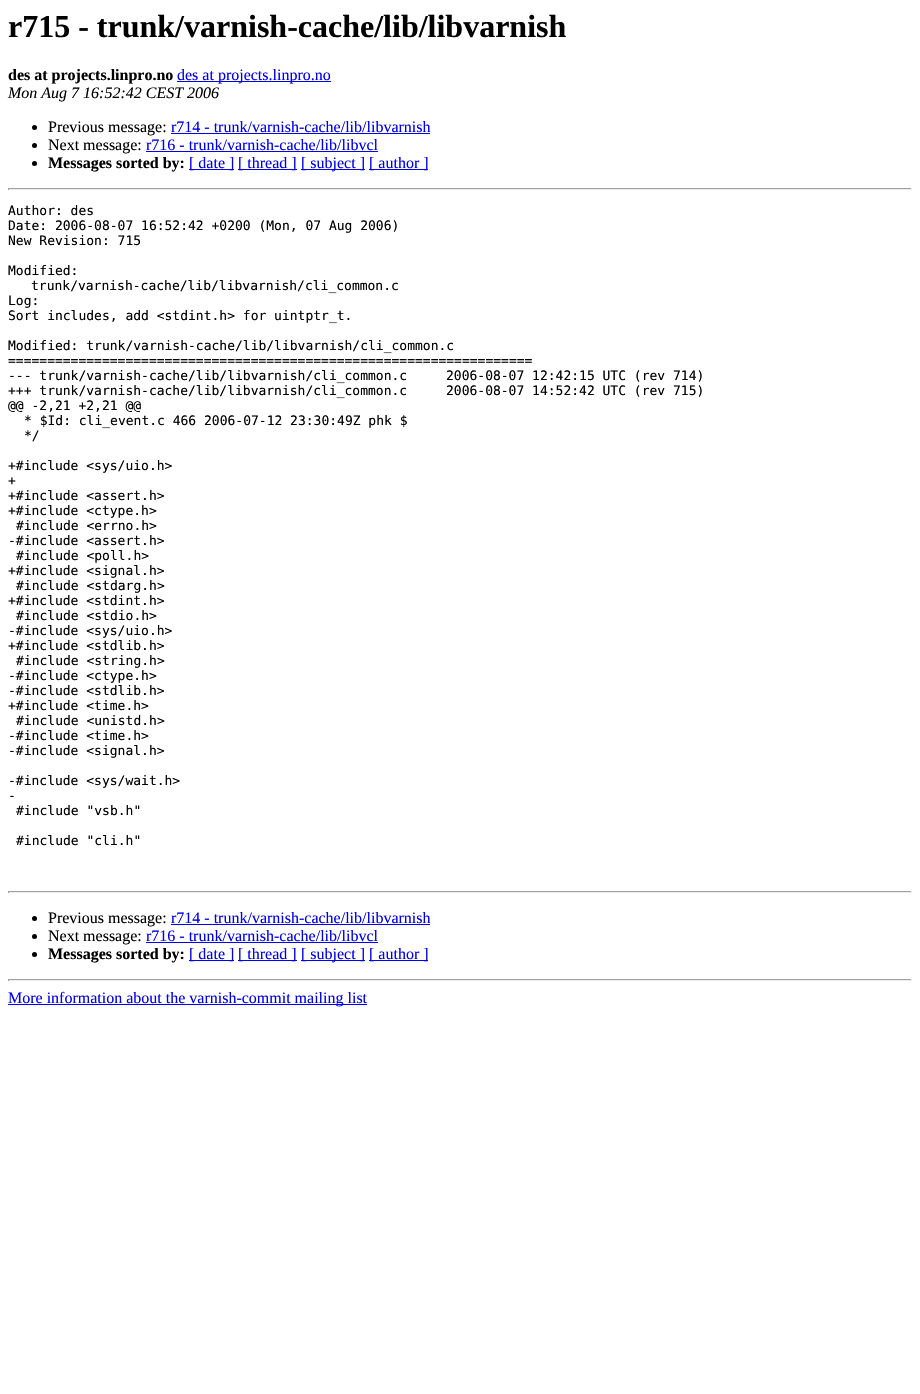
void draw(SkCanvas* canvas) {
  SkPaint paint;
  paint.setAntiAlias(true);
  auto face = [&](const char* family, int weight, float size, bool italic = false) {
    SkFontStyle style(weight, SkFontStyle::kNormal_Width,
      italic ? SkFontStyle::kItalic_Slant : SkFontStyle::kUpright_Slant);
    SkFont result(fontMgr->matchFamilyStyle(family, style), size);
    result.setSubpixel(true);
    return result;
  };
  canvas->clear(0xffffffff);
  paint.setColor(0xff0000ee);
  canvas->drawRect(SkRect::MakeXYWH(177, 81, 154, 1), paint);
  paint.setColor(0xff000000);
  canvas->drawCircle(34.5f, 127.5f, 2.5f, paint);
  paint.setColor(0xff0000ee);
  canvas->drawRect(SkRect::MakeXYWH(171, 133, 259, 1), paint);
  paint.setColor(0xff000000);
  canvas->drawCircle(34.5f, 145.5f, 2.5f, paint);
  paint.setColor(0xff0000ee);
  canvas->drawRect(SkRect::MakeXYWH(146, 151, 232, 1), paint);
  paint.setColor(0xff000000);
  canvas->drawCircle(34.5f, 163.5f, 2.5f, paint);
  {
    const struct { float x, y, w, h; SkColor color; } items[] = {
      {189, 169, 45, 1, 0xff0000ee},
      {238, 169, 59, 1, 0xff0000ee},
      {301, 169, 64, 1, 0xff0000ee},
      {369, 169, 59, 1, 0xff0000ee},
      {8, 188, 904, 1, 0xff9f9f9f},
      {911, 188, 1, 2, 0xffeeeeee},
      {8, 189, 904, 1, 0xffeeeeee},
      {8, 188, 1, 2, 0xff9f9f9f},
      {8, 891, 904, 1, 0xff9f9f9f},
      {911, 891, 1, 2, 0xffeeeeee},
      {8, 892, 904, 1, 0xffeeeeee},
      {8, 891, 1, 2, 0xff9f9f9f},
    };
    for (auto [x, y, w, h, color] : items) {
      paint.setColor(color);
      canvas->drawRect(SkRect::MakeXYWH(x, y, w, h), paint);
    }
  }
  paint.setColor(0xff000000);
  canvas->drawCircle(34.5f, 918.5f, 2.5f, paint);
  paint.setColor(0xff0000ee);
  canvas->drawRect(SkRect::MakeXYWH(171, 924, 259, 1), paint);
  paint.setColor(0xff000000);
  canvas->drawCircle(34.5f, 936.5f, 2.5f, paint);
  paint.setColor(0xff0000ee);
  canvas->drawRect(SkRect::MakeXYWH(146, 942, 232, 1), paint);
  paint.setColor(0xff000000);
  canvas->drawCircle(34.5f, 954.5f, 2.5f, paint);
  {
    const struct { float x, y, w, h; SkColor color; } items[] = {
      {189, 960, 45, 1, 0xff0000ee},
      {238, 960, 59, 1, 0xff0000ee},
      {301, 960, 64, 1, 0xff0000ee},
      {369, 960, 59, 1, 0xff0000ee},
      {8, 979, 904, 1, 0xff9f9f9f},
      {911, 979, 1, 2, 0xffeeeeee},
      {8, 980, 904, 1, 0xffeeeeee},
      {8, 979, 1, 2, 0xff9f9f9f},
      {8, 1004, 359, 1, 0xff0000ee},
    };
    for (auto [x, y, w, h, color] : items) {
      paint.setColor(color);
      canvas->drawRect(SkRect::MakeXYWH(x, y, w, h), paint);
    }
  }
  auto f0 = face("Liberation Serif", 700, 32);
  paint.setColor(0xff000000);
  canvas->drawString("r715 - trunk/varnish-cache/lib/libvarnish", 8, 37, f0, paint);
  auto f1 = face("Liberation Serif", 700, 16);
  canvas->drawString("des at projects.linpro.no", 8, 80, f1, paint);
  auto f2 = face("Liberation Serif", 400, 16);
  paint.setColor(0xff0000ee);
  canvas->drawString("des at projects.linpro.no", 177, 80, f2, paint);
  auto f3 = face("Liberation Serif", 400, 16, true);
  paint.setColor(0xff000000);
  canvas->drawString("Mon Aug 7 16:52:42 CEST 2006", 8, 98, f3, paint);
  canvas->drawString("Previous message:", 48, 132, f2, paint);
  paint.setColor(0xff0000ee);
  canvas->drawString("r714 - trunk/varnish-cache/lib/libvarnish", 171, 132, f2, paint);
  paint.setColor(0xff000000);
  canvas->drawString("Next message:", 48, 150, f2, paint);
  paint.setColor(0xff0000ee);
  canvas->drawString("r716 - trunk/varnish-cache/lib/libvcl", 146, 150, f2, paint);
  paint.setColor(0xff000000);
  canvas->drawString("Messages sorted by:", 48, 168, f1, paint);
  paint.setColor(0xff0000ee);
  {
    const struct { const char* s; float x, y; } items[] = {
      {"[ date ]", 189, 168},
      {"[ thread ]", 238, 168},
      {"[ subject ]", 301, 168},
      {"[ author ]", 369, 168},
    };
    for (auto [s, x, y] : items) {
      canvas->drawString(s, x, y, f2, paint);
    }
  }
  auto f4 = face("DejaVu Sans Mono", 400, 13);
  paint.setColor(0xff000000);
  {
    const struct { const char* s; float x, y; } items[] = {
      {"Author: des", 8, 215},
      {"Date: 2006-08-07 16:52:42 +0200 (Mon, 07 Aug 2006)", 8, 230},
      {"New Revision: 715", 8, 245},
      {"Modified:", 8, 275},
      {"trunk/varnish-cache/lib/libvarnish/cli_common.c", 31, 290},
      {"Log:", 8, 305},
      {"Sort includes, add <stdint.h> for uintptr_t.", 8, 320},
      {"Modified: trunk/varnish-cache/lib/libvarnish/cli_common.c", 8, 350},
      {"===================================================================", 8, 365},
      {"--- trunk/varnish-cache/lib/libvarnish/cli_common.c", 8, 380},
      {"2006-08-07 12:42:15 UTC (rev 714)", 446, 380},
      {"+++ trunk/varnish-cache/lib/libvarnish/cli_common.c", 8, 395},
      {"2006-08-07 14:52:42 UTC (rev 715)", 446, 395},
      {"@@ -2,21 +2,21 @@", 8, 410},
      {"* $Id: cli_event.c 466 2006-07-12 23:30:49Z phk $", 24, 425},
      {"*/", 24, 440},
      {"+#include <sys/uio.h>", 8, 470},
      {"+", 8, 485},
      {"+#include <assert.h>", 8, 500},
      {"+#include <ctype.h>", 8, 515},
      {"#include <errno.h>", 16, 530},
      {"-#include <assert.h>", 8, 545},
      {"#include <poll.h>", 16, 560},
      {"+#include <signal.h>", 8, 575},
      {"#include <stdarg.h>", 16, 590},
      {"+#include <stdint.h>", 8, 605},
      {"#include <stdio.h>", 16, 620},
      {"-#include <sys/uio.h>", 8, 635},
      {"+#include <stdlib.h>", 8, 650},
      {"#include <string.h>", 16, 665},
      {"-#include <ctype.h>", 8, 680},
      {"-#include <stdlib.h>", 8, 695},
      {"+#include <time.h>", 8, 710},
      {"#include <unistd.h>", 16, 725},
      {"-#include <time.h>", 8, 740},
      {"-#include <signal.h>", 8, 755},
      {"-#include <sys/wait.h>", 8, 785},
      {"-", 8, 800},
      {"#include \"vsb.h\"", 16, 815},
      {"#include \"cli.h\"", 16, 845},
    };
    for (auto [s, x, y] : items) {
      canvas->drawString(s, x, y, f4, paint);
    }
  }
  canvas->drawString("Previous message:", 48, 923, f2, paint);
  paint.setColor(0xff0000ee);
  canvas->drawString("r714 - trunk/varnish-cache/lib/libvarnish", 171, 923, f2, paint);
  paint.setColor(0xff000000);
  canvas->drawString("Next message:", 48, 941, f2, paint);
  paint.setColor(0xff0000ee);
  canvas->drawString("r716 - trunk/varnish-cache/lib/libvcl", 146, 941, f2, paint);
  paint.setColor(0xff000000);
  canvas->drawString("Messages sorted by:", 48, 959, f1, paint);
  paint.setColor(0xff0000ee);
  {
    const struct { const char* s; float x, y; } items[] = {
      {"[ date ]", 189, 959},
      {"[ thread ]", 238, 959},
      {"[ subject ]", 301, 959},
      {"[ author ]", 369, 959},
      {"More information about the varnish-commit mailing list", 8, 1003},
    };
    for (auto [s, x, y] : items) {
      canvas->drawString(s, x, y, f2, paint);
    }
  }
}
